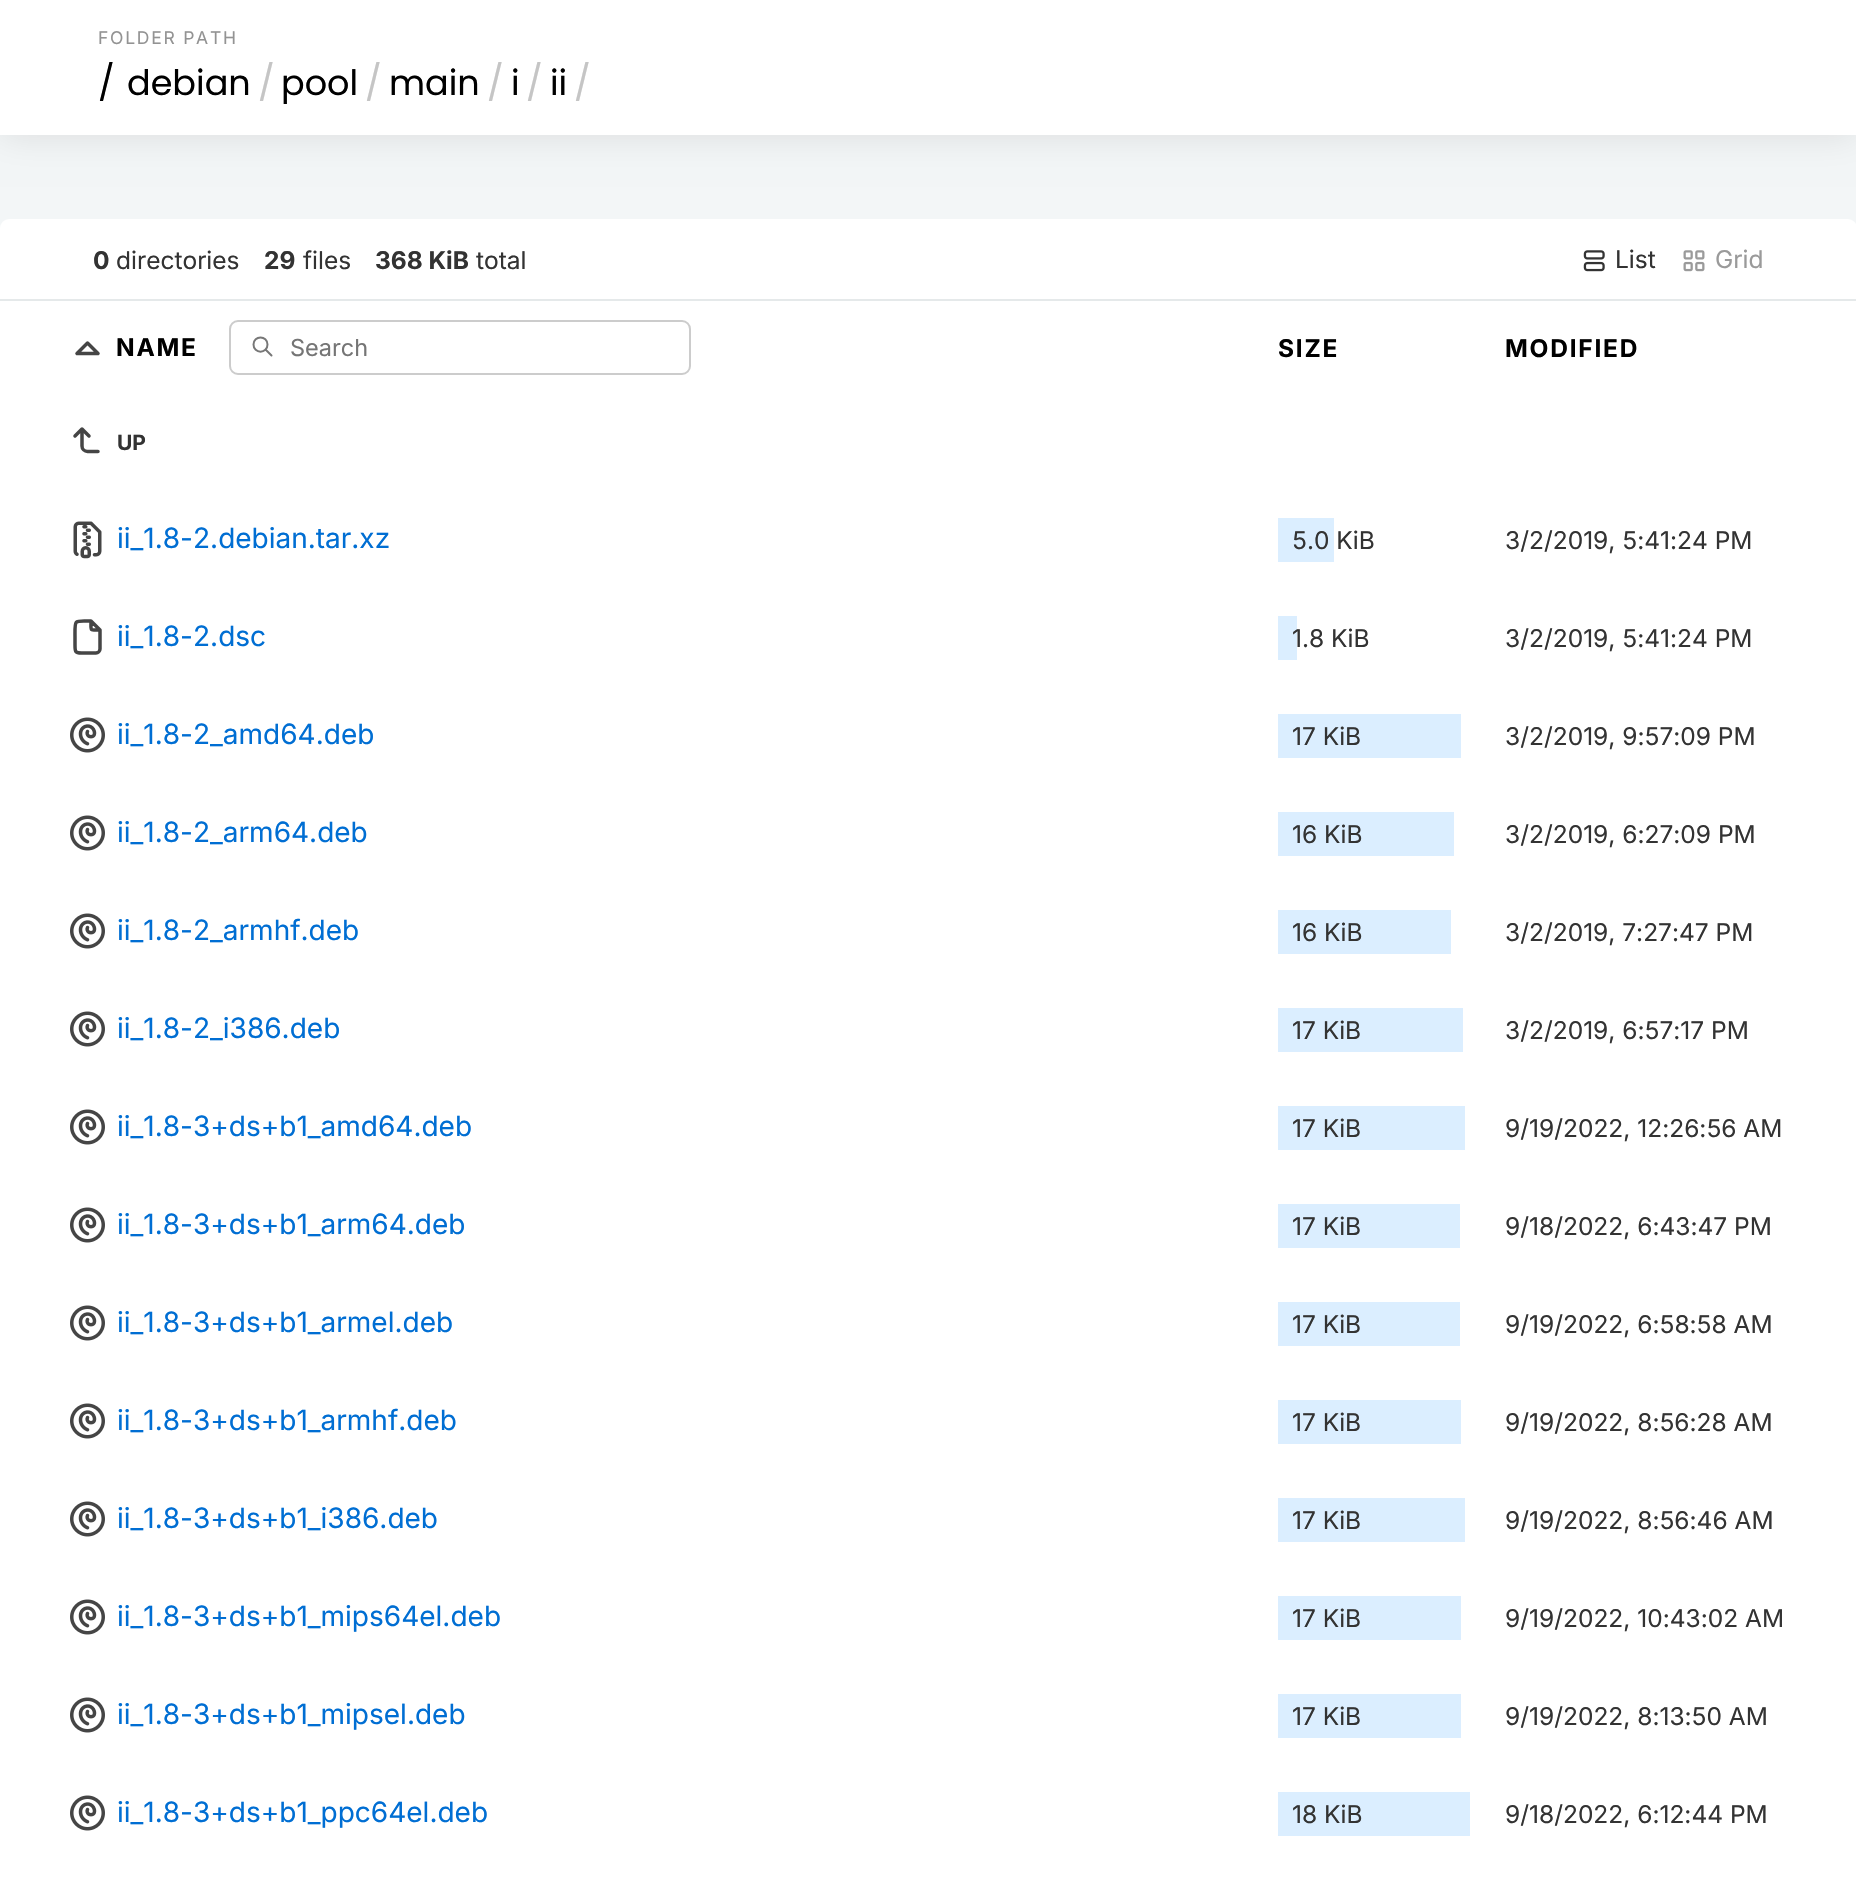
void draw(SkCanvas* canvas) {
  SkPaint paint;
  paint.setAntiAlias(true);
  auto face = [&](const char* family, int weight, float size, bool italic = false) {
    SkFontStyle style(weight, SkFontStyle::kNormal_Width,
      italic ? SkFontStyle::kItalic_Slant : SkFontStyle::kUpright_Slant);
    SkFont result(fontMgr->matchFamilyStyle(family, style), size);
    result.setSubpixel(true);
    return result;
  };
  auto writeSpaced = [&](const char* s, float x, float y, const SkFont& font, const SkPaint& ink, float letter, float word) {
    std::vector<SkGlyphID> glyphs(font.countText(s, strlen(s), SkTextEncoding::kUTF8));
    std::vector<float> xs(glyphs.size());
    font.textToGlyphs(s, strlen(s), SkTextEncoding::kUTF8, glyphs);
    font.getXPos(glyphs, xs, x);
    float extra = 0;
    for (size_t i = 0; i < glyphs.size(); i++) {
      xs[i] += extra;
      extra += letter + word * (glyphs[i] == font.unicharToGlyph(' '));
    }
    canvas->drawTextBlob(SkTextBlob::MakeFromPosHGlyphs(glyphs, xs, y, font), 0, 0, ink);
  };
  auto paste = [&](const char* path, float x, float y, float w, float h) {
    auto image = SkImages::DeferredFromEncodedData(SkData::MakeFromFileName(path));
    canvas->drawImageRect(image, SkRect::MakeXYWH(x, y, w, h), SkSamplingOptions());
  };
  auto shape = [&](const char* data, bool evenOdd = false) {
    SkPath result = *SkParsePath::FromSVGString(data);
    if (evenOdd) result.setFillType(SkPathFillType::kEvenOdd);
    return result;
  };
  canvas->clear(0xfff3f6f7);
  paint.setColor(0x1a000000);
  paint.setMaskFilter(SkMaskFilter::MakeBlur(kNormal_SkBlurStyle, 17.5f));
  canvas->drawRect(SkRect::MakeXYWH(0, 0, 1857, 135), paint);
  paint.setMaskFilter(nullptr);
  paint.setColor(0xffffffff);
  canvas->drawRect(SkRect::MakeXYWH(0, 0, 1856, 135), paint);
  canvas->drawRoundRect(SkRect::MakeXYWH(0, 219, 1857, 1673), 9, 9, paint);
  paint.setColor(0xffe5e9ea);
  canvas->drawRect(SkRect::MakeXYWH(0, 299, 1856, 2), paint);
  paste("img/1.png", 1583, 250, 22, 22);
  paste("img/2.png", 1683, 250, 22, 22);
  paint.setStroke(true);
  paint.setStrokeWidth(3.5f);
  paint.setStrokeCap(SkPaint::kRound_Cap);
  paint.setStrokeJoin(SkPaint::kRound_Join);
  paint.setColor(0xff454545);
  canvas->drawPath(shape("M98 353.5L87.5 343L77 353.5H98"), paint);
  paint.setStrokeWidth(2);
  paint.setColor(0xff777777);
  canvas->drawPath(shape("M253.5 344.5C253.5 354 267.5 354 267.5 344.5C267.5 335 253.5 335 253.5 344.5M271.5 355.5L265.5 349.5"), paint);
  paint.setStrokeCap(SkPaint::kButt_Cap);
  paint.setStrokeJoin(SkPaint::kMiter_Join);
  paint.setColor(0xffcccccc);
  canvas->drawRoundRect(SkRect::MakeXYWH(230, 321, 460, 53), 8, 8, paint);
  paint.setStrokeWidth(3.5f);
  paint.setStrokeCap(SkPaint::kRound_Cap);
  paint.setStrokeJoin(SkPaint::kRound_Join);
  paint.setColor(0xff454545);
  canvas->drawPath(shape("M98 451.5H87.5C84.5 451.5 82 449 82 446V429L75 436M89 436L82 429"), paint);
  paste("img/3.png", 73, 521, 29, 38);
  paint.setStroke(false);
  paint.setColor(0xffdbeeff);
  canvas->drawRect(SkRect::MakeXYWH(1278, 518, 56, 44), paint);
  paint.setStroke(true);
  paint.setColor(0xff454545);
  canvas->drawPath(shape("M91 621C91 631.5 89.5 630 100 630M96 653H81.5C75 653 75 651.5 75 645V637C75 618.5 73.5 621 91 621L100 630V649C100 651 98 653 96 653Z"), paint);
  paint.setStroke(false);
  paint.setColor(0xffdbeeff);
  canvas->drawRect(SkRect::MakeXYWH(1278, 616, 19, 44), paint);
  paste("img/4.png", 70, 717, 35, 36);
  canvas->drawRect(SkRect::MakeXYWH(1278, 714, 183, 44), paint);
  paste("img/4.png", 70, 815, 35, 36);
  canvas->drawRect(SkRect::MakeXYWH(1278, 812, 176, 44), paint);
  paste("img/4.png", 70, 913, 35, 36);
  canvas->drawRect(SkRect::MakeXYWH(1278, 910, 173, 44), paint);
  paste("img/4.png", 70, 1011, 35, 36);
  canvas->drawRect(SkRect::MakeXYWH(1278, 1008, 185, 44), paint);
  paste("img/4.png", 70, 1109, 35, 36);
  canvas->drawRect(SkRect::MakeXYWH(1278, 1106, 187, 44), paint);
  paste("img/4.png", 70, 1207, 35, 36);
  canvas->drawRect(SkRect::MakeXYWH(1278, 1204, 182, 44), paint);
  paste("img/4.png", 70, 1305, 35, 36);
  canvas->drawRect(SkRect::MakeXYWH(1278, 1302, 182, 44), paint);
  paste("img/4.png", 70, 1403, 35, 36);
  canvas->drawRect(SkRect::MakeXYWH(1278, 1400, 183, 44), paint);
  paste("img/4.png", 70, 1501, 35, 36);
  canvas->drawRect(SkRect::MakeXYWH(1278, 1498, 187, 44), paint);
  paste("img/4.png", 70, 1599, 35, 36);
  canvas->drawRect(SkRect::MakeXYWH(1278, 1596, 183, 44), paint);
  paste("img/4.png", 70, 1697, 35, 36);
  canvas->drawRect(SkRect::MakeXYWH(1278, 1694, 183, 44), paint);
  paste("img/4.png", 70, 1795, 35, 36);
  canvas->drawRect(SkRect::MakeXYWH(1278, 1792, 192, 44), paint);
  auto f0 = face("Inter", 400, 17.5f);
  paint.setColor(0xff939393);
  writeSpaced("FOLDER PATH", 98, 44, f0, paint, 1.75f, 0);
  auto f1 = face("Poppins", 400, 35);
  paint.setColor(0xff000000);
  canvas->drawString("/", 98, 95, f1, paint);
  canvas->drawString("debian", 127, 95, f1, paint);
  paint.setColor(0xffc5c5c5);
  canvas->drawString("/", 258, 95, f1, paint);
  paint.setColor(0xff000000);
  canvas->drawString("pool", 281, 95, f1, paint);
  paint.setColor(0xffc5c5c5);
  canvas->drawString("/", 365, 95, f1, paint);
  paint.setColor(0xff000000);
  canvas->drawString("main", 389, 95, f1, paint);
  paint.setColor(0xffc5c5c5);
  canvas->drawString("/", 487, 95, f1, paint);
  paint.setColor(0xff000000);
  canvas->drawString("i", 511, 95, f1, paint);
  paint.setColor(0xffc5c5c5);
  canvas->drawString("/", 526, 95, f1, paint);
  paint.setColor(0xff000000);
  canvas->drawString("ii", 550, 95, f1, paint);
  paint.setColor(0xffc5c5c5);
  canvas->drawString("/", 574, 95, f1, paint);
  auto f2 = face("Inter", 700, 24.5f);
  paint.setColor(0xff333333);
  canvas->drawString("0", 93, 269, f2, paint);
  auto f3 = face("Inter", 400, 24.5f);
  canvas->drawString("directories", 116, 269, f3, paint);
  canvas->drawString("29", 264, 269, f2, paint);
  canvas->drawString("files", 303, 269, f3, paint);
  canvas->drawString("368 KiB", 375, 269, f2, paint);
  canvas->drawString("total", 476, 269, f3, paint);
  canvas->drawString("List", 1615, 268, f3, paint);
  paint.setColor(0xff9a9a9a);
  canvas->drawString("Grid", 1715, 268, f3, paint);
  paint.setColor(0xff000000);
  writeSpaced("NAME", 116, 356, f2, paint, 1.75f, 0);
  auto f4 = face("Inter", 400, 23.5f);
  paint.setColor(0xff757575);
  canvas->drawString("Search", 290, 356, f4, paint);
  paint.setColor(0xff000000);
  writeSpaced("SIZE", 1278, 357, f2, paint, 1.75f, 0);
  writeSpaced("MODIFIED", 1505, 357, f2, paint, 1.75f, 0);
  auto f5 = face("Inter", 700, 21);
  paint.setColor(0xff333333);
  canvas->drawString("UP", 117, 450, f5, paint);
  auto f6 = face("Inter", 400, 28);
  paint.setColor(0xff006ed3);
  canvas->drawString("ii_1.8-2.debian.tar.xz", 117, 548, f6, paint);
  paint.setColor(0xff333333);
  canvas->drawString("5.0 KiB", 1292, 549, f3, paint);
  canvas->drawString("3/2/2019, 5:41:24 PM", 1505, 549, f3, paint);
  paint.setColor(0xff006ed3);
  canvas->drawString("ii_1.8-2.dsc", 117, 646, f6, paint);
  paint.setColor(0xff333333);
  canvas->drawString("1.8 KiB", 1292, 647, f3, paint);
  canvas->drawString("3/2/2019, 5:41:24 PM", 1505, 647, f3, paint);
  paint.setColor(0xff006ed3);
  canvas->drawString("ii_1.8-2_amd64.deb", 117, 744, f6, paint);
  paint.setColor(0xff333333);
  canvas->drawString("17 KiB", 1292, 745, f3, paint);
  canvas->drawString("3/2/2019, 9:57:09 PM", 1505, 745, f3, paint);
  paint.setColor(0xff006ed3);
  canvas->drawString("ii_1.8-2_arm64.deb", 117, 842, f6, paint);
  paint.setColor(0xff333333);
  canvas->drawString("16 KiB", 1292, 843, f3, paint);
  canvas->drawString("3/2/2019, 6:27:09 PM", 1505, 843, f3, paint);
  paint.setColor(0xff006ed3);
  canvas->drawString("ii_1.8-2_armhf.deb", 117, 940, f6, paint);
  paint.setColor(0xff333333);
  canvas->drawString("16 KiB", 1292, 941, f3, paint);
  canvas->drawString("3/2/2019, 7:27:47 PM", 1505, 941, f3, paint);
  paint.setColor(0xff006ed3);
  canvas->drawString("ii_1.8-2_i386.deb", 117, 1038, f6, paint);
  paint.setColor(0xff333333);
  canvas->drawString("17 KiB", 1292, 1039, f3, paint);
  canvas->drawString("3/2/2019, 6:57:17 PM", 1505, 1039, f3, paint);
  paint.setColor(0xff006ed3);
  canvas->drawString("ii_1.8-3+ds+b1_amd64.deb", 117, 1136, f6, paint);
  paint.setColor(0xff333333);
  canvas->drawString("17 KiB", 1292, 1137, f3, paint);
  canvas->drawString("9/19/2022, 12:26:56 AM", 1505, 1137, f3, paint);
  paint.setColor(0xff006ed3);
  canvas->drawString("ii_1.8-3+ds+b1_arm64.deb", 117, 1234, f6, paint);
  paint.setColor(0xff333333);
  canvas->drawString("17 KiB", 1292, 1235, f3, paint);
  canvas->drawString("9/18/2022, 6:43:47 PM", 1505, 1235, f3, paint);
  paint.setColor(0xff006ed3);
  canvas->drawString("ii_1.8-3+ds+b1_armel.deb", 117, 1332, f6, paint);
  paint.setColor(0xff333333);
  canvas->drawString("17 KiB", 1292, 1333, f3, paint);
  canvas->drawString("9/19/2022, 6:58:58 AM", 1505, 1333, f3, paint);
  paint.setColor(0xff006ed3);
  canvas->drawString("ii_1.8-3+ds+b1_armhf.deb", 117, 1430, f6, paint);
  paint.setColor(0xff333333);
  canvas->drawString("17 KiB", 1292, 1431, f3, paint);
  canvas->drawString("9/19/2022, 8:56:28 AM", 1505, 1431, f3, paint);
  paint.setColor(0xff006ed3);
  canvas->drawString("ii_1.8-3+ds+b1_i386.deb", 117, 1528, f6, paint);
  paint.setColor(0xff333333);
  canvas->drawString("17 KiB", 1292, 1529, f3, paint);
  canvas->drawString("9/19/2022, 8:56:46 AM", 1505, 1529, f3, paint);
  paint.setColor(0xff006ed3);
  canvas->drawString("ii_1.8-3+ds+b1_mips64el.deb", 117, 1626, f6, paint);
  paint.setColor(0xff333333);
  canvas->drawString("17 KiB", 1292, 1627, f3, paint);
  canvas->drawString("9/19/2022, 10:43:02 AM", 1505, 1627, f3, paint);
  paint.setColor(0xff006ed3);
  canvas->drawString("ii_1.8-3+ds+b1_mipsel.deb", 117, 1724, f6, paint);
  paint.setColor(0xff333333);
  canvas->drawString("17 KiB", 1292, 1725, f3, paint);
  canvas->drawString("9/19/2022, 8:13:50 AM", 1505, 1725, f3, paint);
  paint.setColor(0xff006ed3);
  canvas->drawString("ii_1.8-3+ds+b1_ppc64el.deb", 117, 1822, f6, paint);
  paint.setColor(0xff333333);
  canvas->drawString("18 KiB", 1292, 1823, f3, paint);
  canvas->drawString("9/18/2022, 6:12:44 PM", 1505, 1823, f3, paint);
}
